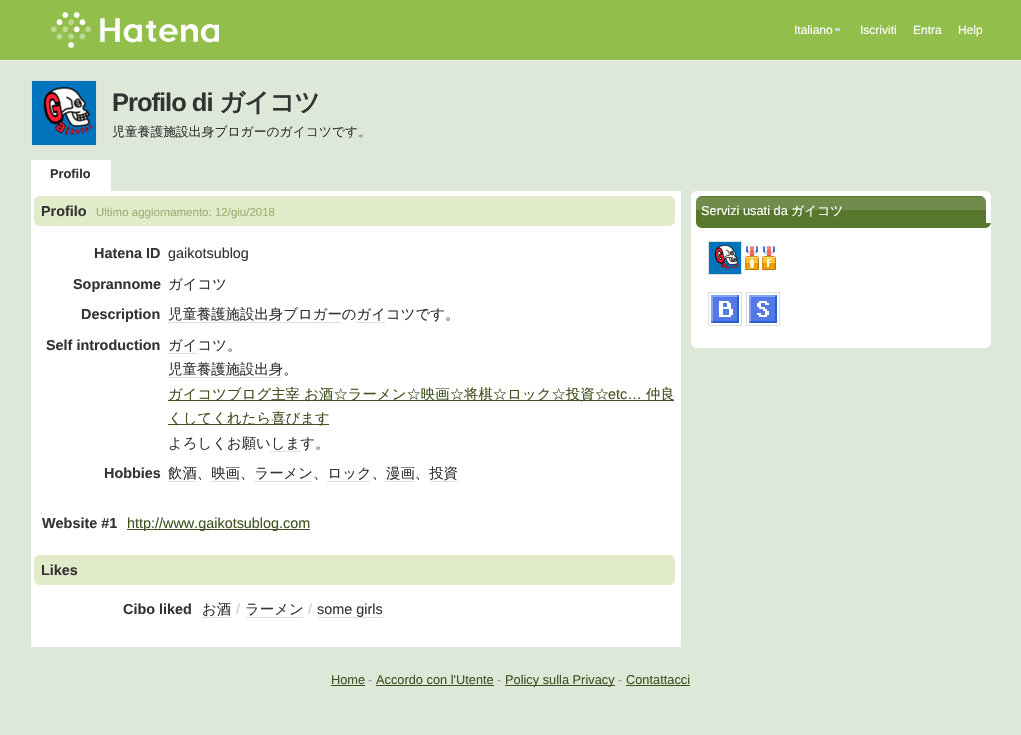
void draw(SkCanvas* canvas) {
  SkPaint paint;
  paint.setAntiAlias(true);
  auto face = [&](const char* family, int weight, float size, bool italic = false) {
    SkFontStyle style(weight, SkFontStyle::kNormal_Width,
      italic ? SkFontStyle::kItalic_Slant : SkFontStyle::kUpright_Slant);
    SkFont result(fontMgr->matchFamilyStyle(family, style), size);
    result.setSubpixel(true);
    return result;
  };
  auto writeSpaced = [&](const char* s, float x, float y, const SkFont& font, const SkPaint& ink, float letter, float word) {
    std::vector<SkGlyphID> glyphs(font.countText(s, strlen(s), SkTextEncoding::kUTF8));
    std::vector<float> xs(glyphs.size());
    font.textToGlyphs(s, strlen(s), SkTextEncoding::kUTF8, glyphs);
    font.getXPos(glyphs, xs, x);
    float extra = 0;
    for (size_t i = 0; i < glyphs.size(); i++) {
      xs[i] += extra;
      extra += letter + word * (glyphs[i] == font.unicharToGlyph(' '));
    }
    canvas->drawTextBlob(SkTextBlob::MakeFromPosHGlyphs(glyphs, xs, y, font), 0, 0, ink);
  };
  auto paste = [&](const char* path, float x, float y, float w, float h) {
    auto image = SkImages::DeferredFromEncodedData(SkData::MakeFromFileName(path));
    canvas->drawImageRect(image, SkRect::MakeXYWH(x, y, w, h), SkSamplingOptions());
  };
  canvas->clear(0xffdee8d8);
  paint.setColor(0xff92bf4c);
  canvas->drawRect(SkRect::MakeXYWH(0, 0, 1021, 60), paint);
  paint.setColor(0xfff0f0f0);
  canvas->drawRect(SkRect::MakeXYWH(0, 60, 1021, 1), paint);
  paste("img/1.png", 51, 12, 168, 36);
  paint.setColor(0xffc6d0f3);
  canvas->drawRect(SkRect::MakeXYWH(835, 28, 5, 3), paint);
  paint.setStroke(true);
  paint.setStrokeWidth(1);
  paint.setColor(0xffdedede);
  canvas->drawRect(SkRect::MakeXYWH(31.5f, 80.5f, 65, 65), paint);
  paste("img/2.png", 32, 81, 64, 64);
  paint.setStroke(false);
  paint.setColor(0xffffffff);
  canvas->drawRect(SkRect::MakeXYWH(31, 160, 80, 31), paint);
  canvas->drawRect(SkRect::MakeXYWH(31, 191, 650, 456), paint);
  paste("img/3.png", 34, 196, 641, 30);
  {
    const struct { float x, y, w, h; SkColor color; } items[] = {
      {168, 322, 173, 1, 0xffdedede},
      {356, 322, 29, 1, 0xffdedede},
      {168, 353, 29, 1, 0xffdedede},
      {168, 377, 115, 1, 0xffdedede},
      {168, 400, 506, 1, 0xff40501e},
      {168, 424, 161, 1, 0xff40501e},
      {270, 451, 30, 1, 0xffdedede},
      {168, 481, 28, 1, 0xffdedede},
      {211, 481, 28, 1, 0xffdedede},
      {254, 481, 58, 1, 0xffdedede},
      {327, 481, 44, 1, 0xffdedede},
      {385, 481, 29, 1, 0xffdedede},
      {429, 481, 28, 1, 0xffdedede},
      {127, 529, 183, 1, 0xff40501e},
    };
    for (auto [x, y, w, h, color] : items) {
      paint.setColor(color);
      canvas->drawRect(SkRect::MakeXYWH(x, y, w, h), paint);
    }
  }
  paste("img/3.png", 34, 555, 641, 30);
  {
    const struct { float x, y, w, h; SkColor color; } items[] = {
      {202, 617, 29, 1, 0xffdedede},
      {245, 617, 58, 1, 0xffdedede},
      {317, 617, 66, 1, 0xffdedede},
    };
    for (auto [x, y, w, h, color] : items) {
      paint.setColor(color);
      canvas->drawRect(SkRect::MakeXYWH(x, y, w, h), paint);
    }
  }
  paste("img/4.png", 691, 343, 300, 5);
  paste("img/5.png", 691, 191, 300, 32);
  paint.setColor(0xffffffff);
  canvas->drawRect(SkRect::MakeXYWH(691, 223, 300, 120), paint);
  paste("img/6.png", 696, 223, 295, 5);
  paint.setStroke(true);
  paint.setColor(0xffdedede);
  canvas->drawRect(SkRect::MakeXYWH(708.5f, 241.5f, 33, 33), paint);
  paste("img/7.png", 709, 242, 32, 32);
  paste("img/8.png", 745, 246, 14, 24);
  paste("img/9.png", 762, 246, 14, 24);
  canvas->drawRect(SkRect::MakeXYWH(708.5f, 292.5f, 33, 33), paint);
  paste("img/10.png", 711, 295, 28, 28);
  canvas->drawRect(SkRect::MakeXYWH(746.5f, 292.5f, 33, 33), paint);
  paste("img/11.png", 749, 295, 28, 28);
  paint.setStroke(false);
  {
    const struct { float x, y, w, h; SkColor color; } items[] = {
      {331, 685, 34, 1, 0xff40501e},
      {376, 685, 118, 1, 0xff40501e},
      {505, 685, 110, 1, 0xff40501e},
      {626, 685, 64, 1, 0xff40501e},
    };
    for (auto [x, y, w, h, color] : items) {
      paint.setColor(color);
      canvas->drawRect(SkRect::MakeXYWH(x, y, w, h), paint);
    }
  }
  auto f0 = face("Liberation Sans", 400, 12);
  paint.setColor(0xffffffff);
  {
    const struct { const char* s; float x, y; } items[] = {
      {"Italiano", 794, 34},
      {"Iscriviti", 860, 34},
      {"Entra", 913, 34},
      {"Help", 958, 34},
    };
    for (auto [s, x, y] : items) {
      canvas->drawString(s, x, y, f0, paint);
    }
  }
  auto f1 = face("Liberation Sans", 700, 25.5f);
  paint.setColor(0xff333333);
  writeSpaced("Profilo di", 112, 111, f1, paint, -1, 0);
  auto f2 = face("WenQuanYi Zen Hei", 700, 25.5f);
  writeSpaced("ガイコツ", 219, 111, f2, paint, -1, 0);
  auto f3 = face("WenQuanYi Zen Hei", 500, 12.8f);
  canvas->drawString("児童養護施設出身ブロガーのガイコツです。", 112, 136, f3, paint);
  auto f4 = face("Liberation Sans", 700, 12.8f);
  canvas->drawString("Profilo", 50, 178, f4, paint);
  auto f5 = face("Liberation Sans", 700, 14.4f);
  canvas->drawString("Profilo", 41, 216, f5, paint);
  auto f6 = face("Liberation Sans", 400, 11.5f);
  paint.setColor(0xff9eb073);
  canvas->drawString("Ultimo aggiornamento: 12/giu/2018", 96, 216, f6, paint);
  paint.setColor(0xff333333);
  canvas->drawString("Hatena ID", 94, 258, f5, paint);
  auto f7 = face("Liberation Sans", 400, 14.4f);
  canvas->drawString("gaikotsublog", 168, 258, f7, paint);
  canvas->drawString("Soprannome", 73, 289, f5, paint);
  auto f8 = face("WenQuanYi Zen Hei", 500, 14.4f);
  canvas->drawString("ガイコツ", 168, 289, f8, paint);
  canvas->drawString("Description", 81, 319, f5, paint);
  canvas->drawString("児童養護施設出身ブロガーのガイコツです。", 168, 319, f8, paint);
  canvas->drawString("Self introduction", 46, 350, f5, paint);
  canvas->drawString("ガイコツ。", 168, 350, f8, paint);
  canvas->drawString("児童養護施設出身。", 168, 374, f8, paint);
  paint.setColor(0xff40501e);
  canvas->drawString("ガイコツブログ主宰 お酒☆ラーメン☆映画☆将棋☆ロック☆投資☆", 168, 399, f8, paint);
  canvas->drawString("etc…", 608, 399, f7, paint);
  canvas->drawString("仲良", 646, 399, f8, paint);
  canvas->drawString("くしてくれたら喜びます", 168, 423, f8, paint);
  paint.setColor(0xff333333);
  canvas->drawString("よろしくお願いします。", 168, 448, f8, paint);
  canvas->drawString("Hobbies", 104, 478, f5, paint);
  canvas->drawString("飲酒、映画、ラーメン、ロック、漫画、投資", 168, 478, f8, paint);
  canvas->drawString("Website #1", 42, 528, f5, paint);
  paint.setColor(0xff40501e);
  canvas->drawString("http://www.gaikotsublog.com", 127, 528, f7, paint);
  paint.setColor(0xff333333);
  canvas->drawString("Likes", 41, 575, f5, paint);
  canvas->drawString("Cibo liked", 123, 614, f5, paint);
  canvas->drawString("お酒", 202, 614, f8, paint);
  paint.setColor(0xffcccccc);
  canvas->drawString("/", 236, 614, f7, paint);
  paint.setColor(0xff333333);
  canvas->drawString("ラーメン", 245, 614, f8, paint);
  paint.setColor(0xffcccccc);
  canvas->drawString("/", 308, 614, f7, paint);
  paint.setColor(0xff333333);
  canvas->drawString("some girls", 317, 614, f7, paint);
  auto f9 = face("Liberation Sans", 400, 12.8f);
  paint.setColor(0xffffffff);
  canvas->drawString("Servizi usati da", 701, 215, f9, paint);
  canvas->drawString("ガイコツ", 791, 215, f3, paint);
  paint.setColor(0xff40501e);
  canvas->drawString("Home", 331, 684, f9, paint);
  paint.setColor(0xff999999);
  canvas->drawString("-", 368, 684, f9, paint);
  paint.setColor(0xff40501e);
  canvas->drawString("Accordo con l'Utente", 376, 684, f9, paint);
  paint.setColor(0xff999999);
  canvas->drawString("-", 497, 684, f9, paint);
  paint.setColor(0xff40501e);
  canvas->drawString("Policy sulla Privacy", 505, 684, f9, paint);
  paint.setColor(0xff999999);
  canvas->drawString("-", 618, 684, f9, paint);
  paint.setColor(0xff40501e);
  canvas->drawString("Contattacci", 626, 684, f9, paint);
}
